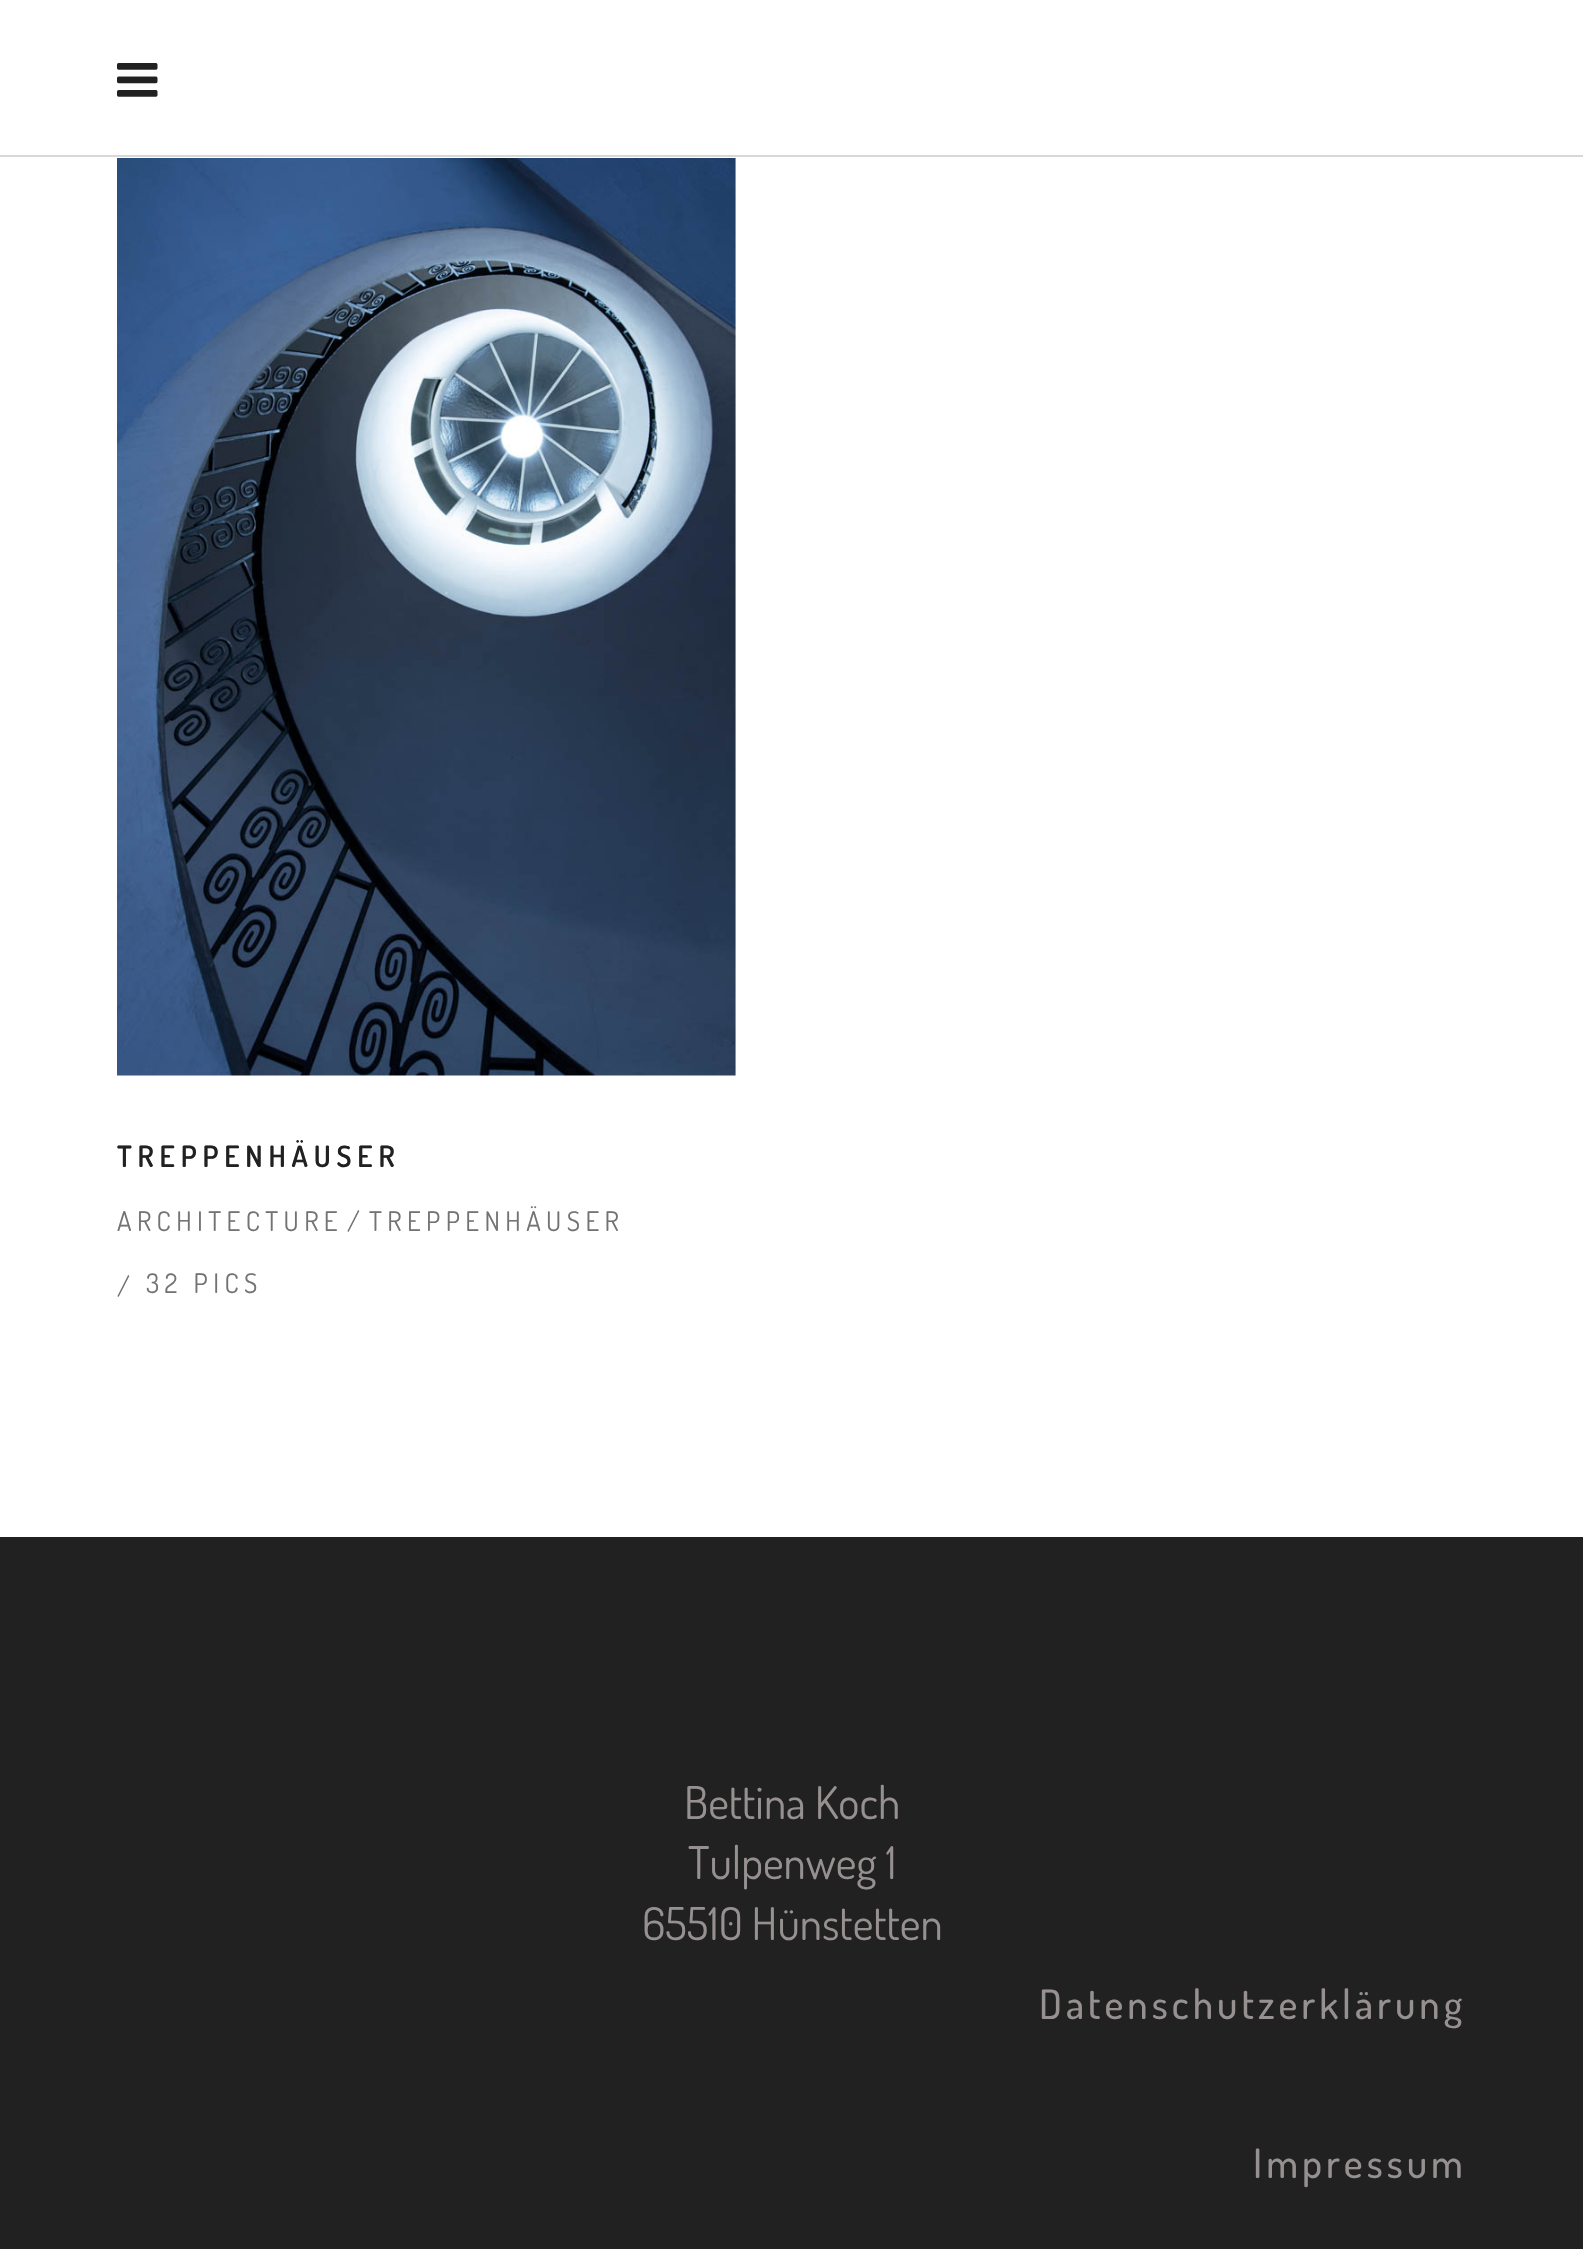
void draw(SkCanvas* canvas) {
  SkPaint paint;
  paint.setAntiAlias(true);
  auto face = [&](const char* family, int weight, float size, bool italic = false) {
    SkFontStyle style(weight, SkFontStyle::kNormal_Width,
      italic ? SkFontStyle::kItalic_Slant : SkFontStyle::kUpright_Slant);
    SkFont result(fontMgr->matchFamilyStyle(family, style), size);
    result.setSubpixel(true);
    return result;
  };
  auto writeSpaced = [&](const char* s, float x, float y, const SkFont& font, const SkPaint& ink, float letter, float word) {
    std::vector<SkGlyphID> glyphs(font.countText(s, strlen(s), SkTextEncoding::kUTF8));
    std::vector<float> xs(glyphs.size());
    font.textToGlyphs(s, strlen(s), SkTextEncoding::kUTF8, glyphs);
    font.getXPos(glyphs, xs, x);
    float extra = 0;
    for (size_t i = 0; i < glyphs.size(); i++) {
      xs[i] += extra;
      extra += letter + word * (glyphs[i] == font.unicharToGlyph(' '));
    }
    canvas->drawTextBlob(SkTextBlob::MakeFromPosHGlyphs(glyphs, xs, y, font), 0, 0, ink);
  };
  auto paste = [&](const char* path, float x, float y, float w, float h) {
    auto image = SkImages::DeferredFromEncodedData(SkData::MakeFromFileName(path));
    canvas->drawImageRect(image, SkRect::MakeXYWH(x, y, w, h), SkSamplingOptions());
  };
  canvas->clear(0xffffffff);
  paint.setColor(0xffd7d7d7);
  canvas->drawRect(SkRect::MakeXYWH(0, 155, 1583, 2), paint);
  paste("img/1.png", 117, 63, 41, 34);
  paste("img/2.png", 117, 158, 619, 918);
  paint.setColor(0xff212121);
  canvas->drawRect(SkRect::MakeXYWH(0, 1537, 1583, 712), paint);
  auto f0 = face("Dosis", 600, 29.25f);
  writeSpaced("TREPPENHÄUSER", 117, 1167, f0, paint, 5.8f, 0);
  auto f1 = face("Dosis", 400, 27);
  paint.setColor(0xff737373);
  {
    const struct { const char* s; float x, y; } items[] = {
      {"ARCHITECTURE", 117, 1231},
      {"/", 347, 1231},
      {"TREPPENHÄUSER", 369, 1231},
      {"/", 117, 1296},
      {"32 PICS", 146, 1293},
    };
    for (auto [s, x, y] : items) {
      writeSpaced(s, x, y, f1, paint, 5.4f, 0);
    }
  }
  auto f2 = face("Dosis", 400, 45);
  paint.setColor(0xff969090);
  {
    const struct { const char* s; float x, y; } items[] = {
      {"Bettina Koch", 684, 1819},
      {"Tulpenweg 1", 688, 1879},
      {"65510 Hünstetten", 642, 1940},
    };
    for (auto [s, x, y] : items) {
      canvas->drawString(s, x, y, f2, paint);
    }
  }
  auto f3 = face("Dosis", 500, 40.5f);
  writeSpaced("Datenschutzerklärung", 1039, 2019, f3, paint, 4, 0);
  writeSpaced("Impressum", 1253, 2178, f3, paint, 4, 0);
}
